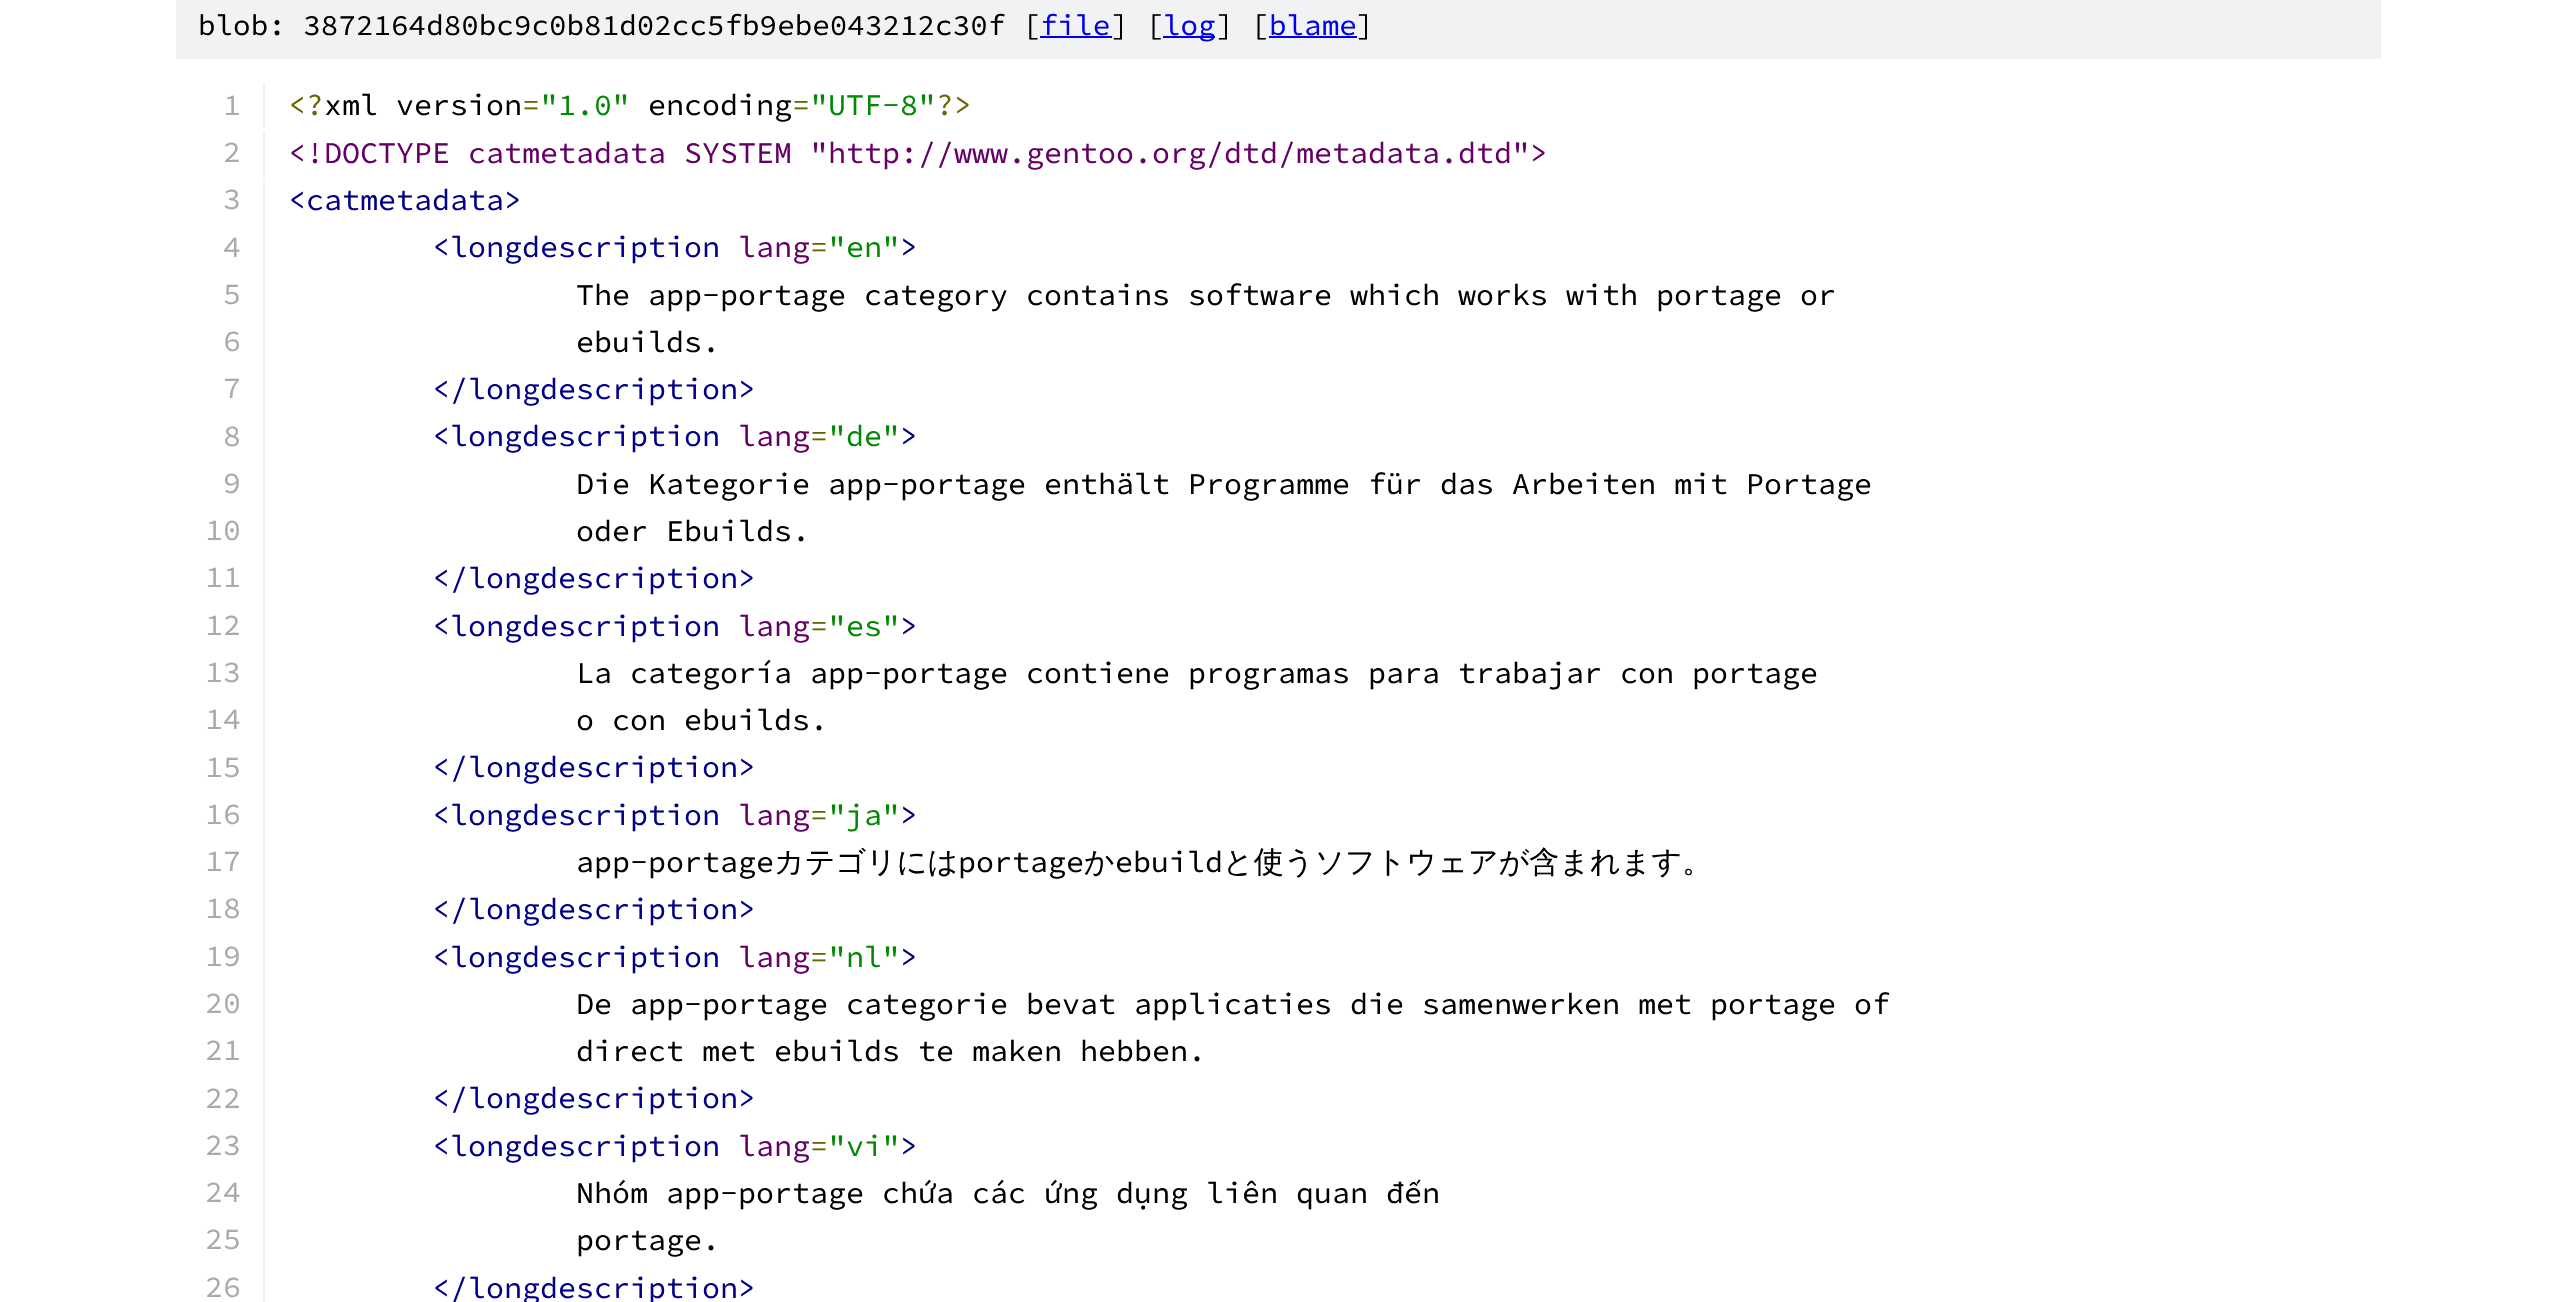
void draw(SkCanvas* canvas) {
  SkPaint paint;
  paint.setAntiAlias(true);
  auto face = [&](const char* family, int weight, float size, bool italic = false) {
    SkFontStyle style(weight, SkFontStyle::kNormal_Width,
      italic ? SkFontStyle::kItalic_Slant : SkFontStyle::kUpright_Slant);
    SkFont result(fontMgr->matchFamilyStyle(family, style), size);
    result.setSubpixel(true);
    return result;
  };
  canvas->clear(0xffffffff);
  {
    const struct { float x, y, w, h; SkColor color; } items[] = {
      {176, 0, 2205, 59, 0xfff1f2f3},
      {1040, 36, 72, 2, 0xff0000ee},
      {1163, 36, 52, 2, 0xff0000ee},
      {1269, 36, 88, 2, 0xff0000ee},
      {263, 83, 2, 45, 0xfff1f2f3},
      {263, 131, 2, 45, 0xfff1f2f3},
      {263, 178, 2, 1124, 0xfff1f2f3},
    };
    for (auto [x, y, w, h, color] : items) {
      paint.setColor(color);
      canvas->drawRect(SkRect::MakeXYWH(x, y, w, h), paint);
    }
  }
  auto f0 = face("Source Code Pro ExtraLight", 200, 29.25f);
  paint.setColor(0xff000000);
  canvas->drawString("blob: 3872164d80bc9c0b81d02cc5fb9ebe043212c30f [", 198, 35, f0, paint);
  paint.setColor(0xff0000ee);
  canvas->drawString("file", 1040, 35, f0, paint);
  paint.setColor(0xff000000);
  canvas->drawString("] [", 1111, 35, f0, paint);
  paint.setColor(0xff0000ee);
  canvas->drawString("log", 1163, 35, f0, paint);
  paint.setColor(0xff000000);
  canvas->drawString("] [", 1216, 35, f0, paint);
  paint.setColor(0xff0000ee);
  canvas->drawString("blame", 1269, 35, f0, paint);
  paint.setColor(0xff000000);
  canvas->drawString("]", 1356, 35, f0, paint);
  auto f1 = face("Source Code Pro ExtraLight", 200, 30);
  paint.setColor(0xffaaaaaa);
  canvas->drawString("1", 223, 115, f1, paint);
  paint.setColor(0xff666600);
  canvas->drawString("<?", 288, 115, f1, paint);
  paint.setColor(0xff000000);
  canvas->drawString("xml version", 324, 115, f1, paint);
  paint.setColor(0xff666600);
  canvas->drawString("=", 522, 115, f1, paint);
  paint.setColor(0xff008800);
  canvas->drawString("\"1.0\"", 540, 115, f1, paint);
  paint.setColor(0xff000000);
  canvas->drawString("encoding", 648, 115, f1, paint);
  paint.setColor(0xff666600);
  canvas->drawString("=", 792, 115, f1, paint);
  paint.setColor(0xff008800);
  canvas->drawString("\"UTF-8\"", 810, 115, f1, paint);
  paint.setColor(0xff666600);
  canvas->drawString("?>", 936, 115, f1, paint);
  paint.setColor(0xffaaaaaa);
  canvas->drawString("2", 223, 162, f1, paint);
  paint.setColor(0xff660066);
  canvas->drawString("<!DOCTYPE catmetadata SYSTEM \"http://www.gentoo.org/dtd/metadata.dtd\">", 288, 163, f1, paint);
  paint.setColor(0xffaaaaaa);
  canvas->drawString("3", 223, 209, f1, paint);
  paint.setColor(0xff000088);
  canvas->drawString("<catmetadata>", 288, 210, f1, paint);
  paint.setColor(0xffaaaaaa);
  canvas->drawString("4", 223, 257, f1, paint);
  paint.setColor(0xff000088);
  canvas->drawString("<longdescription", 432, 257, f1, paint);
  paint.setColor(0xff660066);
  canvas->drawString("lang", 738, 257, f1, paint);
  paint.setColor(0xff666600);
  canvas->drawString("=", 810, 257, f1, paint);
  paint.setColor(0xff008800);
  canvas->drawString("\"en\"", 828, 257, f1, paint);
  paint.setColor(0xff000088);
  canvas->drawString(">", 900, 257, f1, paint);
  paint.setColor(0xffaaaaaa);
  canvas->drawString("5", 223, 304, f1, paint);
  paint.setColor(0xff000000);
  canvas->drawString("The app-portage category contains software which works with portage or", 576, 305, f1, paint);
  paint.setColor(0xffaaaaaa);
  canvas->drawString("6", 223, 351, f1, paint);
  paint.setColor(0xff000000);
  canvas->drawString("ebuilds.", 576, 352, f1, paint);
  paint.setColor(0xffaaaaaa);
  canvas->drawString("7", 223, 398, f1, paint);
  paint.setColor(0xff000088);
  canvas->drawString("</longdescription>", 432, 399, f1, paint);
  paint.setColor(0xffaaaaaa);
  canvas->drawString("8", 223, 446, f1, paint);
  paint.setColor(0xff000088);
  canvas->drawString("<longdescription", 432, 446, f1, paint);
  paint.setColor(0xff660066);
  canvas->drawString("lang", 738, 446, f1, paint);
  paint.setColor(0xff666600);
  canvas->drawString("=", 810, 446, f1, paint);
  paint.setColor(0xff008800);
  canvas->drawString("\"de\"", 828, 446, f1, paint);
  paint.setColor(0xff000088);
  canvas->drawString(">", 900, 446, f1, paint);
  paint.setColor(0xffaaaaaa);
  canvas->drawString("9", 223, 493, f1, paint);
  paint.setColor(0xff000000);
  canvas->drawString("Die Kategorie app-portage enthält Programme für das Arbeiten mit Portage", 576, 494, f1, paint);
  paint.setColor(0xffaaaaaa);
  canvas->drawString("10", 205, 540, f1, paint);
  paint.setColor(0xff000000);
  canvas->drawString("oder Ebuilds.", 576, 541, f1, paint);
  paint.setColor(0xffaaaaaa);
  canvas->drawString("11", 205, 587, f1, paint);
  paint.setColor(0xff000088);
  canvas->drawString("</longdescription>", 432, 588, f1, paint);
  paint.setColor(0xffaaaaaa);
  canvas->drawString("12", 205, 635, f1, paint);
  paint.setColor(0xff000088);
  canvas->drawString("<longdescription", 432, 636, f1, paint);
  paint.setColor(0xff660066);
  canvas->drawString("lang", 738, 636, f1, paint);
  paint.setColor(0xff666600);
  canvas->drawString("=", 810, 636, f1, paint);
  paint.setColor(0xff008800);
  canvas->drawString("\"es\"", 828, 636, f1, paint);
  paint.setColor(0xff000088);
  canvas->drawString(">", 900, 636, f1, paint);
  paint.setColor(0xffaaaaaa);
  canvas->drawString("13", 205, 682, f1, paint);
  paint.setColor(0xff000000);
  canvas->drawString("La categoría app-portage contiene programas para trabajar con portage", 576, 683, f1, paint);
  paint.setColor(0xffaaaaaa);
  canvas->drawString("14", 205, 729, f1, paint);
  paint.setColor(0xff000000);
  canvas->drawString("o con ebuilds.", 576, 730, f1, paint);
  paint.setColor(0xffaaaaaa);
  canvas->drawString("15", 205, 777, f1, paint);
  paint.setColor(0xff000088);
  canvas->drawString("</longdescription>", 432, 777, f1, paint);
  paint.setColor(0xffaaaaaa);
  canvas->drawString("16", 205, 824, f1, paint);
  paint.setColor(0xff000088);
  canvas->drawString("<longdescription", 432, 825, f1, paint);
  paint.setColor(0xff660066);
  canvas->drawString("lang", 738, 825, f1, paint);
  paint.setColor(0xff666600);
  canvas->drawString("=", 810, 825, f1, paint);
  paint.setColor(0xff008800);
  canvas->drawString("\"ja\"", 828, 825, f1, paint);
  paint.setColor(0xff000088);
  canvas->drawString(">", 900, 825, f1, paint);
  paint.setColor(0xffaaaaaa);
  canvas->drawString("17", 205, 871, f1, paint);
  paint.setColor(0xff000000);
  canvas->drawString("app-portage", 576, 872, f1, paint);
  auto f2 = face("WenQuanYi Zen Hei", 500, 30);
  canvas->drawString("カテゴリには", 774, 872, f2, paint);
  canvas->drawString("portage", 958, 872, f1, paint);
  canvas->drawString("か", 1084, 872, f2, paint);
  canvas->drawString("ebuild", 1115, 872, f1, paint);
  canvas->drawString("と使うソフトウェアが含まれます。", 1223, 872, f2, paint);
  paint.setColor(0xffaaaaaa);
  canvas->drawString("18", 205, 918, f1, paint);
  paint.setColor(0xff000088);
  canvas->drawString("</longdescription>", 432, 919, f1, paint);
  paint.setColor(0xffaaaaaa);
  canvas->drawString("19", 205, 966, f1, paint);
  paint.setColor(0xff000088);
  canvas->drawString("<longdescription", 432, 967, f1, paint);
  paint.setColor(0xff660066);
  canvas->drawString("lang", 738, 967, f1, paint);
  paint.setColor(0xff666600);
  canvas->drawString("=", 810, 967, f1, paint);
  paint.setColor(0xff008800);
  canvas->drawString("\"nl\"", 828, 967, f1, paint);
  paint.setColor(0xff000088);
  canvas->drawString(">", 900, 967, f1, paint);
  paint.setColor(0xffaaaaaa);
  canvas->drawString("20", 205, 1013, f1, paint);
  paint.setColor(0xff000000);
  canvas->drawString("De app-portage categorie bevat applicaties die samenwerken met portage of", 576, 1014, f1, paint);
  paint.setColor(0xffaaaaaa);
  canvas->drawString("21", 205, 1060, f1, paint);
  paint.setColor(0xff000000);
  canvas->drawString("direct met ebuilds te maken hebben.", 576, 1061, f1, paint);
  paint.setColor(0xffaaaaaa);
  canvas->drawString("22", 205, 1108, f1, paint);
  paint.setColor(0xff000088);
  canvas->drawString("</longdescription>", 432, 1108, f1, paint);
  paint.setColor(0xffaaaaaa);
  canvas->drawString("23", 205, 1155, f1, paint);
  paint.setColor(0xff000088);
  canvas->drawString("<longdescription", 432, 1156, f1, paint);
  paint.setColor(0xff660066);
  canvas->drawString("lang", 738, 1156, f1, paint);
  paint.setColor(0xff666600);
  canvas->drawString("=", 810, 1156, f1, paint);
  paint.setColor(0xff008800);
  canvas->drawString("\"vi\"", 828, 1156, f1, paint);
  paint.setColor(0xff000088);
  canvas->drawString(">", 900, 1156, f1, paint);
  paint.setColor(0xffaaaaaa);
  canvas->drawString("24", 205, 1202, f1, paint);
  paint.setColor(0xff000000);
  canvas->drawString("Nhóm app-portage chứa các ứng dụng liên quan đến", 576, 1203, f1, paint);
  paint.setColor(0xffaaaaaa);
  canvas->drawString("25", 205, 1249, f1, paint);
  paint.setColor(0xff000000);
  canvas->drawString("portage.", 576, 1250, f1, paint);
  paint.setColor(0xffaaaaaa);
  canvas->drawString("26", 205, 1297, f1, paint);
  paint.setColor(0xff000088);
  canvas->drawString("</longdescription>", 432, 1298, f1, paint);
}
